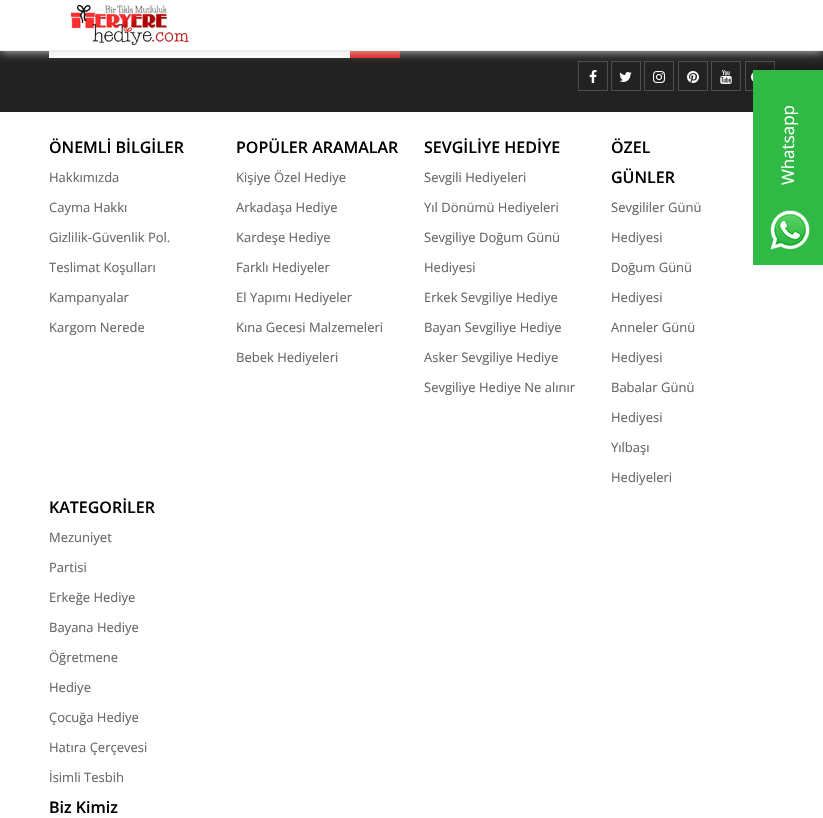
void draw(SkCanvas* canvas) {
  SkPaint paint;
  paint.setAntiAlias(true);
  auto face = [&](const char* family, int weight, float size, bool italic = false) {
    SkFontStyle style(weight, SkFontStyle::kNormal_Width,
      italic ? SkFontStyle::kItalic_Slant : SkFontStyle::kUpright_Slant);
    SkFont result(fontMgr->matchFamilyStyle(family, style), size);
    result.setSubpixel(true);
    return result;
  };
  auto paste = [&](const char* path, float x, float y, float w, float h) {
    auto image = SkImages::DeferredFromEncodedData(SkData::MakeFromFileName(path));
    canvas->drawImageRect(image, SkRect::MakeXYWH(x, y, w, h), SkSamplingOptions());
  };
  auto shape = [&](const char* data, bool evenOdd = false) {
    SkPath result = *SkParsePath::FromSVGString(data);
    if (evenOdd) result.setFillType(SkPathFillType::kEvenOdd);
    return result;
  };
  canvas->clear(0xffffffff);
  {
    const struct { float x, y, w, h; SkColor color; } items[] = {
      {0, 51, 823, 61, 0xff222222},
      {49, 51, 301, 7, 0xffffffff},
      {350, 51, 50, 7, 0xffe01d1d},
    };
    for (auto [x, y, w, h, color] : items) {
      paint.setColor(color);
      canvas->drawRect(SkRect::MakeXYWH(x, y, w, h), paint);
    }
  }
  paint.setStroke(true);
  paint.setStrokeWidth(1);
  paint.setColor(0xff4e4e4e);
  canvas->drawRect(SkRect::MakeXYWH(578.5f, 61.5f, 29, 29), paint);
  canvas->drawRect(SkRect::MakeXYWH(611.5f, 61.5f, 29, 29), paint);
  canvas->drawRect(SkRect::MakeXYWH(644.5f, 61.5f, 29, 29), paint);
  canvas->drawRect(SkRect::MakeXYWH(678.5f, 61.5f, 29, 29), paint);
  canvas->drawRect(SkRect::MakeXYWH(711.5f, 61.5f, 29, 29), paint);
  canvas->drawRect(SkRect::MakeXYWH(745.5f, 61.5f, 29, 29), paint);
  paint.setStroke(false);
  paint.setColor(0xffdddddd);
  paint.setMaskFilter(SkMaskFilter::MakeBlur(kNormal_SkBlurStyle, 5));
  canvas->drawRect(SkRect::MakeXYWH(0, 0, 823, 51), paint);
  paint.setMaskFilter(nullptr);
  paint.setColor(0xffffffff);
  canvas->drawRect(SkRect::MakeXYWH(0, 0, 823, 50), paint);
  paint.setColor(0xffebebeb);
  canvas->drawRect(SkRect::MakeXYWH(0, 50, 823, 1), paint);
  paste("img/1.png", 71, 5, 118, 40);
  paste("img/2.png", 589, 70, 8, 13);
  paste("img/3.png", 619, 72, 13, 10);
  paste("img/4.png", 653, 71, 12, 12);
  paste("img/5.png", 687, 71, 12, 12);
  paste("img/6.png", 720, 70, 12, 14);
  paste("img/7.png", 751, 72, 2, 10);
  paint.setColor(0x33000000);
  canvas->drawPath(shape("M758 65V70H823V260H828V65Z"), paint);
  paint.setColor(0xff30ba45);
  canvas->drawRect(SkRect::MakeXYWH(753, 70, 70, 195), paint);
  paste("img/8.png", 770, 210, 40, 40);
  auto f0 = face("Open Sans", 600, 16);
  paint.setColor(0xff000000);
  canvas->drawString("ÖNEMLİ BİLGİLER", 49, 153, f0, paint);
  auto f1 = face("Open Sans", 400, 13);
  paint.setColor(0xff666666);
  {
    const struct { const char* s; float x, y; } items[] = {
      {"Hakkımızda", 49, 182},
      {"Cayma Hakkı", 49, 212},
      {"Gizlilik-Güvenlik Pol.", 49, 242},
      {"Teslimat Koşulları", 49, 272},
      {"Kampanyalar", 49, 302},
      {"Kargom Nerede", 49, 332},
    };
    for (auto [s, x, y] : items) {
      canvas->drawString(s, x, y, f1, paint);
    }
  }
  paint.setColor(0xff000000);
  canvas->drawString("POPÜLER ARAMALAR", 236, 153, f0, paint);
  paint.setColor(0xff666666);
  {
    const struct { const char* s; float x, y; } items[] = {
      {"Kişiye Özel Hediye", 236, 182},
      {"Arkadaşa Hediye", 236, 212},
      {"Kardeşe Hediye", 236, 242},
      {"Farklı Hediyeler", 236, 272},
      {"El Yapımı Hediyeler", 236, 302},
      {"Kına Gecesi Malzemeleri", 236, 332},
      {"Bebek Hediyeleri", 236, 362},
    };
    for (auto [s, x, y] : items) {
      canvas->drawString(s, x, y, f1, paint);
    }
  }
  paint.setColor(0xff000000);
  canvas->drawString("SEVGİLİYE HEDİYE", 424, 153, f0, paint);
  paint.setColor(0xff666666);
  {
    const struct { const char* s; float x, y; } items[] = {
      {"Sevgili Hediyeleri", 424, 182},
      {"Yıl Dönümü Hediyeleri", 424, 212},
      {"Sevgiliye Doğum Günü", 424, 242},
      {"Hediyesi", 424, 272},
      {"Erkek Sevgiliye Hediye", 424, 302},
      {"Bayan Sevgiliye Hediye", 424, 332},
      {"Asker Sevgiliye Hediye", 424, 362},
      {"Sevgiliye Hediye Ne alınır", 424, 392},
    };
    for (auto [s, x, y] : items) {
      canvas->drawString(s, x, y, f1, paint);
    }
  }
  paint.setColor(0xff000000);
  canvas->drawString("ÖZEL", 611, 153, f0, paint);
  canvas->drawString("GÜNLER", 611, 183, f0, paint);
  paint.setColor(0xff666666);
  {
    const struct { const char* s; float x, y; } items[] = {
      {"Sevgililer Günü", 611, 212},
      {"Hediyesi", 611, 242},
      {"Doğum Günü", 611, 272},
      {"Hediyesi", 611, 302},
      {"Anneler Günü", 611, 332},
      {"Hediyesi", 611, 362},
      {"Babalar Günü", 611, 392},
      {"Hediyesi", 611, 422},
      {"Yılbaşı", 611, 452},
      {"Hediyeleri", 611, 482},
    };
    for (auto [s, x, y] : items) {
      canvas->drawString(s, x, y, f1, paint);
    }
  }
  paint.setColor(0xff000000);
  canvas->drawString("KATEGORİLER", 49, 513, f0, paint);
  paint.setColor(0xff666666);
  {
    const struct { const char* s; float x, y; } items[] = {
      {"Mezuniyet", 49, 542},
      {"Partisi", 49, 572},
      {"Erkeğe Hediye", 49, 602},
      {"Bayana Hediye", 49, 632},
      {"Öğretmene", 49, 662},
      {"Hediye", 49, 692},
      {"Çocuğa Hediye", 49, 722},
      {"Hatıra Çerçevesi", 49, 752},
      {"İsimli Tesbih", 49, 782},
    };
    for (auto [s, x, y] : items) {
      canvas->drawString(s, x, y, f1, paint);
    }
  }
  paint.setColor(0xff000000);
  canvas->drawString("Biz Kimiz", 49, 813, f0, paint);
  auto f2 = face("Open Sans", 400, 17);
  paint.setColor(0xffffffff);
  canvas->save();
  canvas->rotate(-90, 794, 185);
  canvas->drawString("Whatsapp", 794, 185, f2, paint);
  canvas->restore();
}
